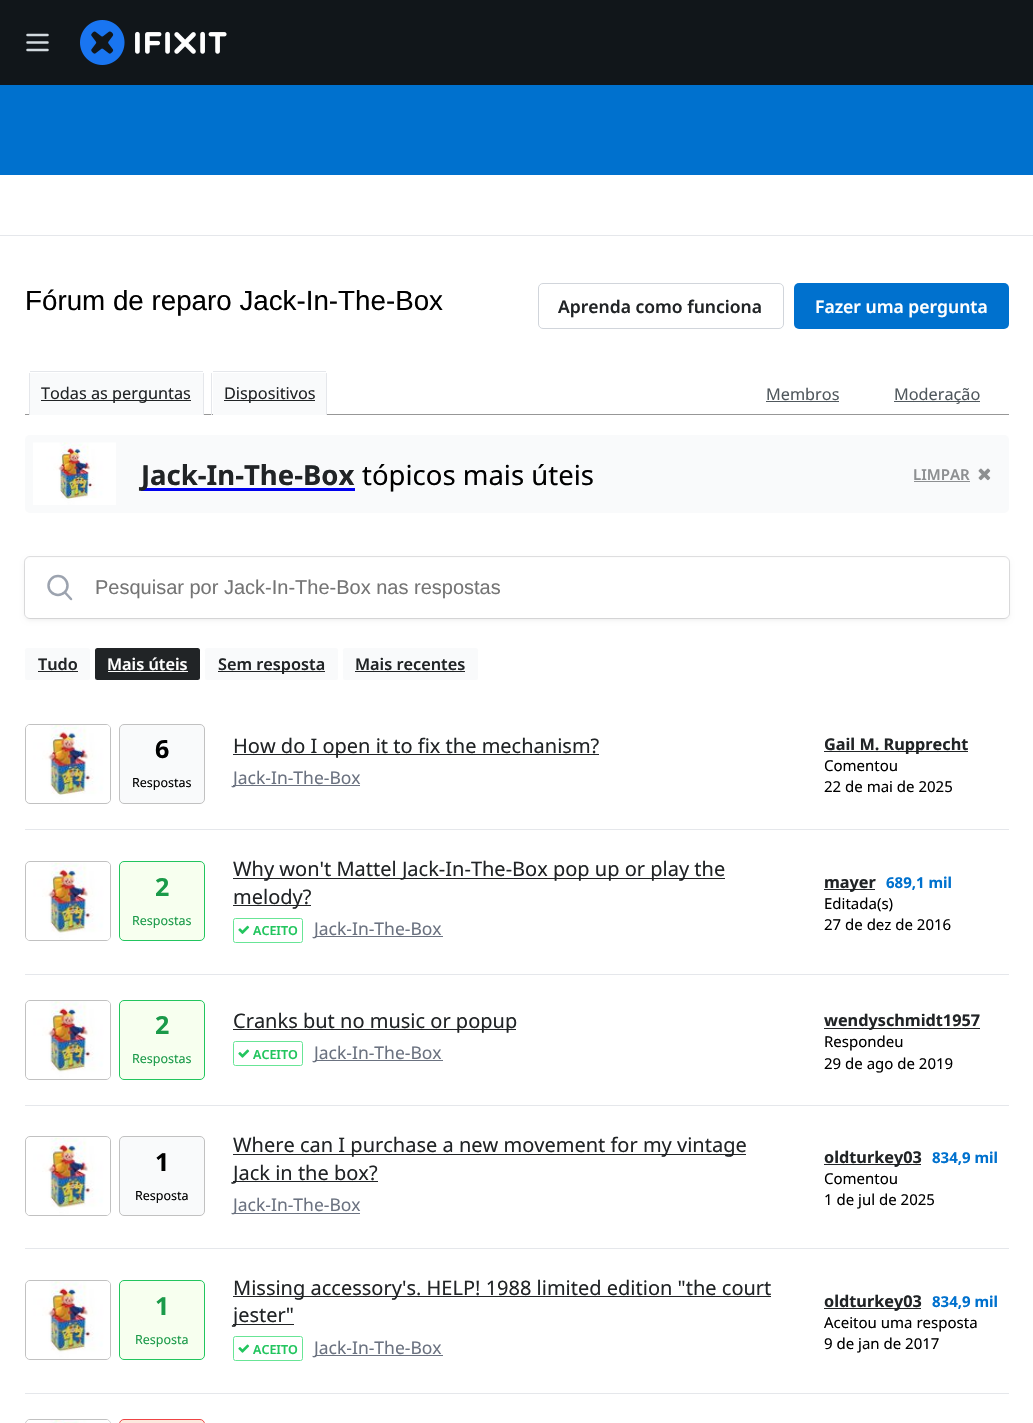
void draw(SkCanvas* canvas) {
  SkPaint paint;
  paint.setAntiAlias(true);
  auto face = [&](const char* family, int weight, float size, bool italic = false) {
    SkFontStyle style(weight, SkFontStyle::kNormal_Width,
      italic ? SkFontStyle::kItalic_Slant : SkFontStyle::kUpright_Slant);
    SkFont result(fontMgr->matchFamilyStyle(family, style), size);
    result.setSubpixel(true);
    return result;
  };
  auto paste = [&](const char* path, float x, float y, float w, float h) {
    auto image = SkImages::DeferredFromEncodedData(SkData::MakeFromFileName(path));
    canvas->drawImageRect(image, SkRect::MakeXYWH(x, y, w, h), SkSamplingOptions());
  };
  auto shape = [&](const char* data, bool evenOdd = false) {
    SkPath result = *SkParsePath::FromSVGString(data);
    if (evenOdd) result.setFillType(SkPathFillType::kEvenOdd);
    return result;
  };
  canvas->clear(0xffffffff);
  paint.setColor(0xff11161a);
  canvas->drawRect(SkRect::MakeXYWH(0, 0, 1033, 85), paint);
  paint.setStroke(true);
  paint.setStrokeWidth(2.5f);
  paint.setStrokeCap(SkPaint::kRound_Cap);
  paint.setStrokeJoin(SkPaint::kRound_Join);
  paint.setColor(0xffd2dadf);
  canvas->drawPath(shape("M27.5 42.5H47.5M27.5 35H47.5M27.5 50H47.5"), paint);
  paste("img/1.png", 80, 20, 147, 45);
  paint.setStroke(false);
  paint.setColor(0xff0071ce);
  canvas->drawRect(SkRect::MakeXYWH(0, 85, 1033, 90), paint);
  paint.setColor(0xffe5e7eb);
  canvas->drawRect(SkRect::MakeXYWH(0, 235, 1033, 1), paint);
  paint.setStroke(true);
  paint.setStrokeWidth(1);
  paint.setStrokeCap(SkPaint::kButt_Cap);
  paint.setStrokeJoin(SkPaint::kMiter_Join);
  paint.setColor(0xffd1d5db);
  canvas->drawRoundRect(SkRect::MakeXYWH(538.5f, 283.5f, 245, 45), 4.5f, 4.5f, paint);
  paint.setStroke(false);
  paint.setColor(0xff0071ce);
  canvas->drawRoundRect(SkRect::MakeXYWH(794, 283, 215, 46), 5, 5, paint);
  paint.setColor(0xff979797);
  canvas->drawRect(SkRect::MakeXYWH(25, 414, 984, 1), paint);
  paint.setColor(0xfff9fafb);
  canvas->drawPath(shape("M31 373H202C202.5 373 203 373.5 203 374V415H30V374C30 373.5 30.5 373 31 373Z"), paint);
  {
    const struct { float x, y, w, h; SkColor color; } items[] = {
      {30, 371, 173, 1, 0xffe5e7eb},
      {203, 373, 1, 42, 0xffe5e7eb},
      {29, 373, 1, 42, 0xffe5e7eb},
      {41, 400, 150, 1, 0xff212426},
    };
    for (auto [x, y, w, h, color] : items) {
      paint.setColor(color);
      canvas->drawRect(SkRect::MakeXYWH(x, y, w, h), paint);
    }
  }
  paint.setColor(0xfff9fafb);
  canvas->drawPath(shape("M214 373H325C325.5 373 326 373.5 326 374V415H213V374C213 373.5 213.5 373 214 373Z"), paint);
  {
    const struct { float x, y, w, h; SkColor color; } items[] = {
      {213, 371, 113, 1, 0xffe5e7eb},
      {326, 373, 1, 42, 0xffe5e7eb},
      {211, 373, 1, 42, 0xffe5e7eb},
      {224, 400, 91, 1, 0xff212426},
      {766, 401, 73, 1, 0xff50585d},
      {894, 401, 86, 1, 0xff50585d},
    };
    for (auto [x, y, w, h, color] : items) {
      paint.setColor(color);
      canvas->drawRect(SkRect::MakeXYWH(x, y, w, h), paint);
    }
  }
  paint.setColor(0xfff9fafb);
  canvas->drawRoundRect(SkRect::MakeXYWH(25, 435, 984, 78), 5, 5, paint);
  paste("img/2.png", 33, 442, 83, 63);
  paint.setColor(0xff0000ee);
  canvas->drawRect(SkRect::MakeXYWH(141, 488, 214, 3), paint);
  paint.setColor(0xff8d8f91);
  canvas->drawRect(SkRect::MakeXYWH(914, 481, 56, 1), paint);
  paste("img/3.png", 978, 468, 13, 13);
  paint.setColor(0x12000306);
  paint.setMaskFilter(SkMaskFilter::MakeBlur(kNormal_SkBlurStyle, 2.5f));
  canvas->drawRoundRect(SkRect::MakeXYWH(25, 560, 984, 60), 5, 5, paint);
  paint.setMaskFilter(nullptr);
  paint.setStroke(true);
  paint.setColor(0x1f000306);
  canvas->drawRoundRect(SkRect::MakeXYWH(24.5f, 556.5f, 985, 62), 5.5f, 5.5f, paint);
  paint.setStroke(false);
  paint.setColor(0xffffffff);
  canvas->drawRoundRect(SkRect::MakeXYWH(25, 558, 984, 60), 5, 5, paint);
  paint.setStroke(true);
  paint.setStrokeWidth(2.5f);
  paint.setColor(0xff9ca3af);
  canvas->drawCircle(58, 585.5f, 9.5f, paint);
  paint.setStrokeCap(SkPaint::kRound_Cap);
  paint.setStrokeJoin(SkPaint::kRound_Join);
  canvas->drawPath(shape("M71 599L65 592.5"), paint);
  paint.setStroke(false);
  paint.setColor(0xfff9fafb);
  canvas->drawRoundRect(SkRect::MakeXYWH(25, 648, 65, 32), 2.5f, 2.5f, paint);
  paint.setColor(0xff212426);
  canvas->drawRect(SkRect::MakeXYWH(38, 671, 40, 1), paint);
  canvas->drawRoundRect(SkRect::MakeXYWH(95, 648, 105, 32), 2.5f, 2.5f, paint);
  paint.setColor(0xffffffff);
  canvas->drawRect(SkRect::MakeXYWH(108, 671, 80, 1), paint);
  paint.setColor(0xfff9fafb);
  canvas->drawRoundRect(SkRect::MakeXYWH(205, 648, 133, 32), 2.5f, 2.5f, paint);
  paint.setColor(0xff212426);
  canvas->drawRect(SkRect::MakeXYWH(218, 671, 107, 1), paint);
  paint.setColor(0xfff9fafb);
  canvas->drawRoundRect(SkRect::MakeXYWH(343, 648, 135, 32), 2.5f, 2.5f, paint);
  paint.setColor(0xff212426);
  canvas->drawRect(SkRect::MakeXYWH(355, 671, 110, 1), paint);
  paint.setColor(0xffe5e7eb);
  canvas->drawRect(SkRect::MakeXYWH(25, 829, 984, 1), paint);
  paint.setStroke(true);
  paint.setStrokeWidth(1);
  paint.setStrokeCap(SkPaint::kButt_Cap);
  paint.setStrokeJoin(SkPaint::kMiter_Join);
  paint.setColor(0xffc1c1c1);
  canvas->drawRoundRect(SkRect::MakeXYWH(25.5f, 724.5f, 85, 79), 4.5f, 4.5f, paint);
  paste("img/4.png", 26, 725, 84, 77);
  paint.setStroke(false);
  paint.setColor(0xfff9fafb);
  canvas->drawRoundRect(SkRect::MakeXYWH(119.5f, 724.5f, 85, 79), 4.5f, 4.5f, paint);
  paint.setStroke(true);
  paint.setColor(0xffc1c1c1);
  canvas->drawRoundRect(SkRect::MakeXYWH(119.5f, 724.5f, 85, 79), 4.5f, 4.5f, paint);
  paint.setStroke(false);
  {
    const struct { float x, y, w, h; SkColor color; } items[] = {
      {233, 754, 366, 1, 0xff212426},
      {233, 785, 127, 1, 0xff6b7280},
      {824, 751, 144, 1, 0xff212426},
      {25, 974, 984, 1, 0xffe5e7eb},
    };
    for (auto [x, y, w, h, color] : items) {
      paint.setColor(color);
      canvas->drawRect(SkRect::MakeXYWH(x, y, w, h), paint);
    }
  }
  paint.setStroke(true);
  paint.setColor(0xffc1c1c1);
  canvas->drawRoundRect(SkRect::MakeXYWH(25.5f, 861.5f, 85, 79), 4.5f, 4.5f, paint);
  paste("img/5.png", 26, 862, 84, 78);
  paint.setStroke(false);
  paint.setColor(0xfff7ffef);
  canvas->drawRoundRect(SkRect::MakeXYWH(119.5f, 861.5f, 85, 79), 4.5f, 4.5f, paint);
  paint.setStroke(true);
  paint.setColor(0xff22c55e);
  canvas->drawRoundRect(SkRect::MakeXYWH(119.5f, 861.5f, 85, 79), 4.5f, 4.5f, paint);
  paint.setStroke(false);
  paint.setColor(0xff212426);
  canvas->drawRect(SkRect::MakeXYWH(233, 878, 492, 1), paint);
  canvas->drawRect(SkRect::MakeXYWH(233, 905, 78, 1), paint);
  paint.setStroke(true);
  paint.setColor(0xff68e596);
  canvas->drawRoundRect(SkRect::MakeXYWH(233.5f, 918.5f, 69, 24), 2, 2, paint);
  paste("img/6.png", 238, 925, 12, 9);
  paint.setStroke(false);
  {
    const struct { float x, y, w, h; SkColor color; } items[] = {
      {315, 936, 128, 1, 0xff6b7280},
      {824, 889, 51, 1, 0xff212426},
      {25, 1105, 984, 1, 0xffe5e7eb},
    };
    for (auto [x, y, w, h, color] : items) {
      paint.setColor(color);
      canvas->drawRect(SkRect::MakeXYWH(x, y, w, h), paint);
    }
  }
  paint.setStroke(true);
  paint.setColor(0xffc1c1c1);
  canvas->drawRoundRect(SkRect::MakeXYWH(25.5f, 1000.5f, 85, 79), 4.5f, 4.5f, paint);
  paste("img/7.png", 26, 1001, 84, 78);
  paint.setStroke(false);
  paint.setColor(0xfff7ffef);
  canvas->drawRoundRect(SkRect::MakeXYWH(119.5f, 1000.5f, 85, 79), 4.5f, 4.5f, paint);
  paint.setStroke(true);
  paint.setColor(0xff22c55e);
  canvas->drawRoundRect(SkRect::MakeXYWH(119.5f, 1000.5f, 85, 79), 4.5f, 4.5f, paint);
  paint.setStroke(false);
  paint.setColor(0xff212426);
  canvas->drawRect(SkRect::MakeXYWH(233, 1029, 283, 1), paint);
  paint.setStroke(true);
  paint.setColor(0xff68e596);
  canvas->drawRoundRect(SkRect::MakeXYWH(233.5f, 1041.5f, 69, 24), 2, 2, paint);
  paste("img/8.png", 238, 1049, 12, 9);
  paint.setStroke(false);
  {
    const struct { float x, y, w, h; SkColor color; } items[] = {
      {315, 1060, 128, 1, 0xff6b7280},
      {824, 1028, 156, 1, 0xff212426},
      {25, 1248, 984, 1, 0xffe5e7eb},
    };
    for (auto [x, y, w, h, color] : items) {
      paint.setColor(color);
      canvas->drawRect(SkRect::MakeXYWH(x, y, w, h), paint);
    }
  }
  paint.setStroke(true);
  paint.setColor(0xffc1c1c1);
  canvas->drawRoundRect(SkRect::MakeXYWH(25.5f, 1136.5f, 85, 79), 4.5f, 4.5f, paint);
  paste("img/5.png", 26, 1137, 84, 78);
  paint.setStroke(false);
  paint.setColor(0xfff9fafb);
  canvas->drawRoundRect(SkRect::MakeXYWH(119.5f, 1136.5f, 85, 79), 4.5f, 4.5f, paint);
  paint.setStroke(true);
  paint.setColor(0xffc1c1c1);
  canvas->drawRoundRect(SkRect::MakeXYWH(119.5f, 1136.5f, 85, 79), 4.5f, 4.5f, paint);
  paint.setStroke(false);
  {
    const struct { float x, y, w, h; SkColor color; } items[] = {
      {233, 1154, 513, 1, 0xff212426},
      {233, 1181, 145, 1, 0xff212426},
      {233, 1213, 127, 1, 0xff6b7280},
      {824, 1164, 97, 1, 0xff212426},
      {25, 1393, 984, 1, 0xffe5e7eb},
    };
    for (auto [x, y, w, h, color] : items) {
      paint.setColor(color);
      canvas->drawRect(SkRect::MakeXYWH(x, y, w, h), paint);
    }
  }
  paint.setStroke(true);
  paint.setColor(0xffc1c1c1);
  canvas->drawRoundRect(SkRect::MakeXYWH(25.5f, 1280.5f, 85, 79), 4.5f, 4.5f, paint);
  paste("img/7.png", 26, 1281, 84, 78);
  paint.setStroke(false);
  paint.setColor(0xfff7ffef);
  canvas->drawRoundRect(SkRect::MakeXYWH(119.5f, 1280.5f, 85, 79), 4.5f, 4.5f, paint);
  paint.setStroke(true);
  paint.setColor(0xff22c55e);
  canvas->drawRoundRect(SkRect::MakeXYWH(119.5f, 1280.5f, 85, 79), 4.5f, 4.5f, paint);
  paint.setStroke(false);
  paint.setColor(0xff212426);
  canvas->drawRect(SkRect::MakeXYWH(233, 1296, 538, 1), paint);
  canvas->drawRect(SkRect::MakeXYWH(233, 1324, 61, 1), paint);
  paint.setStroke(true);
  paint.setColor(0xff68e596);
  canvas->drawRoundRect(SkRect::MakeXYWH(233.5f, 1336.5f, 69, 24), 2, 2, paint);
  paste("img/8.png", 238, 1344, 12, 9);
  paint.setStroke(false);
  paint.setColor(0xff6b7280);
  canvas->drawRect(SkRect::MakeXYWH(315, 1355, 128, 1), paint);
  paint.setColor(0xff212426);
  canvas->drawRect(SkRect::MakeXYWH(824, 1308, 97, 1), paint);
  paint.setStroke(true);
  paint.setColor(0xffc1c1c1);
  canvas->drawRoundRect(SkRect::MakeXYWH(25.5f, 1419.5f, 85, 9), 4.5f, 4.5f, paint);
  paste("img/9.png", 26, 1420, 84, 3);
  paint.setStroke(false);
  paint.setColor(0xfffde9de);
  canvas->drawRoundRect(SkRect::MakeXYWH(119.5f, 1419.5f, 85, 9), 4.5f, 4.5f, paint);
  paint.setStroke(true);
  paint.setColor(0xffef4444);
  canvas->drawRoundRect(SkRect::MakeXYWH(119.5f, 1419.5f, 85, 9), 4.5f, 4.5f, paint);
  auto f0 = face("Liberation Sans", 400, 27.75f);
  paint.setStroke(false);
  paint.setColor(0xff000000);
  canvas->drawString("Fórum de reparo Jack-In-The-Box", 25, 310, f0, paint);
  auto f1 = face("Noto Sans", 600, 17.5f);
  paint.setColor(0xff212426);
  canvas->drawString("Aprenda como funciona", 558, 313, f1, paint);
  paint.setColor(0xffffffff);
  canvas->drawString("Fazer uma pergunta", 815, 313, f1, paint);
  auto f2 = face("Noto Sans", 400, 16.25f);
  paint.setColor(0xff212426);
  canvas->drawString("Todas as perguntas", 41, 399, f2, paint);
  canvas->drawString("Dispositivos", 224, 399, f2, paint);
  paint.setColor(0xff50585d);
  canvas->drawString("Membros", 766, 400, f2, paint);
  canvas->drawString("Moderação", 894, 400, f2, paint);
  auto f3 = face("Noto Sans", 700, 27.5f);
  paint.setColor(0xff212426);
  canvas->drawString("Jack-In-The-Box", 141, 485, f3, paint);
  auto f4 = face("Noto Sans", 400, 27.5f);
  paint.setColor(0xff000000);
  canvas->drawString("tópicos mais úteis", 362, 485, f4, paint);
  auto f5 = face("Noto Sans", 600, 15);
  paint.setColor(0xff8d8f91);
  canvas->drawString("LIMPAR", 913, 480, f5, paint);
  auto f6 = face("Liberation Sans", 400, 20);
  paint.setColor(0xff757575);
  canvas->drawString("Pesquisar por Jack-In-The-Box nas respostas", 95, 594, f6, paint);
  auto f7 = face("Noto Sans", 600, 16.25f);
  paint.setColor(0xff212426);
  canvas->drawString("Tudo", 38, 670, f7, paint);
  paint.setColor(0xffffffff);
  canvas->drawString("Mais úteis", 107, 670, f7, paint);
  paint.setColor(0xff212426);
  canvas->drawString("Sem resposta", 218, 670, f7, paint);
  canvas->drawString("Mais recentes", 355, 670, f7, paint);
  auto f8 = face("Noto Sans", 700, 25);
  paint.setColor(0xff000000);
  canvas->drawString("6", 155, 758, f8, paint);
  auto f9 = face("Noto Sans", 400, 12.5f);
  canvas->drawString("Respostas", 132, 787, f9, paint);
  auto f10 = face("Noto Sans", 400, 20);
  paint.setColor(0xff212426);
  canvas->drawString("How do I open it to fix the mechanism?", 233, 753, f10, paint);
  auto f11 = face("Noto Sans", 400, 17.5f);
  paint.setColor(0xff6b7280);
  canvas->drawString("Jack-In-The-Box", 233, 784, f11, paint);
  auto f12 = face("Noto Sans", 700, 16.25f);
  paint.setColor(0xff212426);
  canvas->drawString("Gail M. Rupprecht", 824, 750, f12, paint);
  auto f13 = face("Noto Sans", 400, 15);
  paint.setColor(0xff000000);
  canvas->drawString("Comentou", 824, 771, f13, paint);
  canvas->drawString("22 de mai de 2025", 824, 792, f13, paint);
  paint.setColor(0xff1a9a49);
  canvas->drawString("2", 155, 896, f8, paint);
  canvas->drawString("Respostas", 132, 925, f9, paint);
  paint.setColor(0xff212426);
  canvas->drawString("Why won't Mattel Jack-In-The-Box pop up or play the", 233, 876, f10, paint);
  canvas->drawString("melody?", 233, 904, f10, paint);
  auto f14 = face("Noto Sans", 600, 12.5f);
  paint.setColor(0xff22c55e);
  canvas->drawString("ACEITO", 253, 935, f14, paint);
  paint.setColor(0xff6b7280);
  canvas->drawString("Jack-In-The-Box", 314, 935, f11, paint);
  paint.setColor(0xff212426);
  canvas->drawString("mayer", 824, 888, f12, paint);
  auto f15 = face("Noto Sans", 700, 15);
  paint.setColor(0xff0071ce);
  canvas->drawString("689,1 mil", 886, 888, f15, paint);
  paint.setColor(0xff000000);
  canvas->drawString("Editada(s)", 824, 909, f13, paint);
  canvas->drawString("27 de dez de 2016", 824, 930, f13, paint);
  paint.setColor(0xff1a9a49);
  canvas->drawString("2", 155, 1034, f8, paint);
  canvas->drawString("Respostas", 132, 1063, f9, paint);
  paint.setColor(0xff212426);
  canvas->drawString("Cranks but no music or popup", 233, 1028, f10, paint);
  paint.setColor(0xff22c55e);
  canvas->drawString("ACEITO", 253, 1059, f14, paint);
  paint.setColor(0xff6b7280);
  canvas->drawString("Jack-In-The-Box", 314, 1059, f11, paint);
  paint.setColor(0xff212426);
  canvas->drawString("wendyschmidt1957", 824, 1026, f12, paint);
  paint.setColor(0xff000000);
  canvas->drawString("Respondeu", 824, 1047, f13, paint);
  canvas->drawString("29 de ago de 2019", 824, 1069, f13, paint);
  canvas->drawString("1", 155, 1171, f8, paint);
  canvas->drawString("Resposta", 135, 1200, f9, paint);
  paint.setColor(0xff212426);
  canvas->drawString("Where can I purchase a new movement for my vintage", 233, 1152, f10, paint);
  canvas->drawString("Jack in the box?", 233, 1180, f10, paint);
  paint.setColor(0xff6b7280);
  canvas->drawString("Jack-In-The-Box", 233, 1211, f11, paint);
  paint.setColor(0xff212426);
  canvas->drawString("oldturkey03", 824, 1163, f12, paint);
  paint.setColor(0xff0071ce);
  canvas->drawString("834,9 mil", 932, 1163, f15, paint);
  paint.setColor(0xff000000);
  canvas->drawString("Comentou", 824, 1184, f13, paint);
  canvas->drawString("1 de jul de 2025", 824, 1205, f13, paint);
  paint.setColor(0xff1a9a49);
  canvas->drawString("1", 155, 1315, f8, paint);
  canvas->drawString("Resposta", 135, 1344, f9, paint);
  paint.setColor(0xff212426);
  canvas->drawString("Missing accessory's. HELP! 1988 limited edition \"the court", 233, 1295, f10, paint);
  canvas->drawString("jester\"", 233, 1322, f10, paint);
  paint.setColor(0xff22c55e);
  canvas->drawString("ACEITO", 253, 1354, f14, paint);
  paint.setColor(0xff6b7280);
  canvas->drawString("Jack-In-The-Box", 314, 1354, f11, paint);
  paint.setColor(0xff212426);
  canvas->drawString("oldturkey03", 824, 1307, f12, paint);
  paint.setColor(0xff0071ce);
  canvas->drawString("834,9 mil", 932, 1307, f15, paint);
  paint.setColor(0xff000000);
  canvas->drawString("Aceitou uma resposta", 824, 1328, f13, paint);
  canvas->drawString("9 de jan de 2017", 824, 1349, f13, paint);
}
